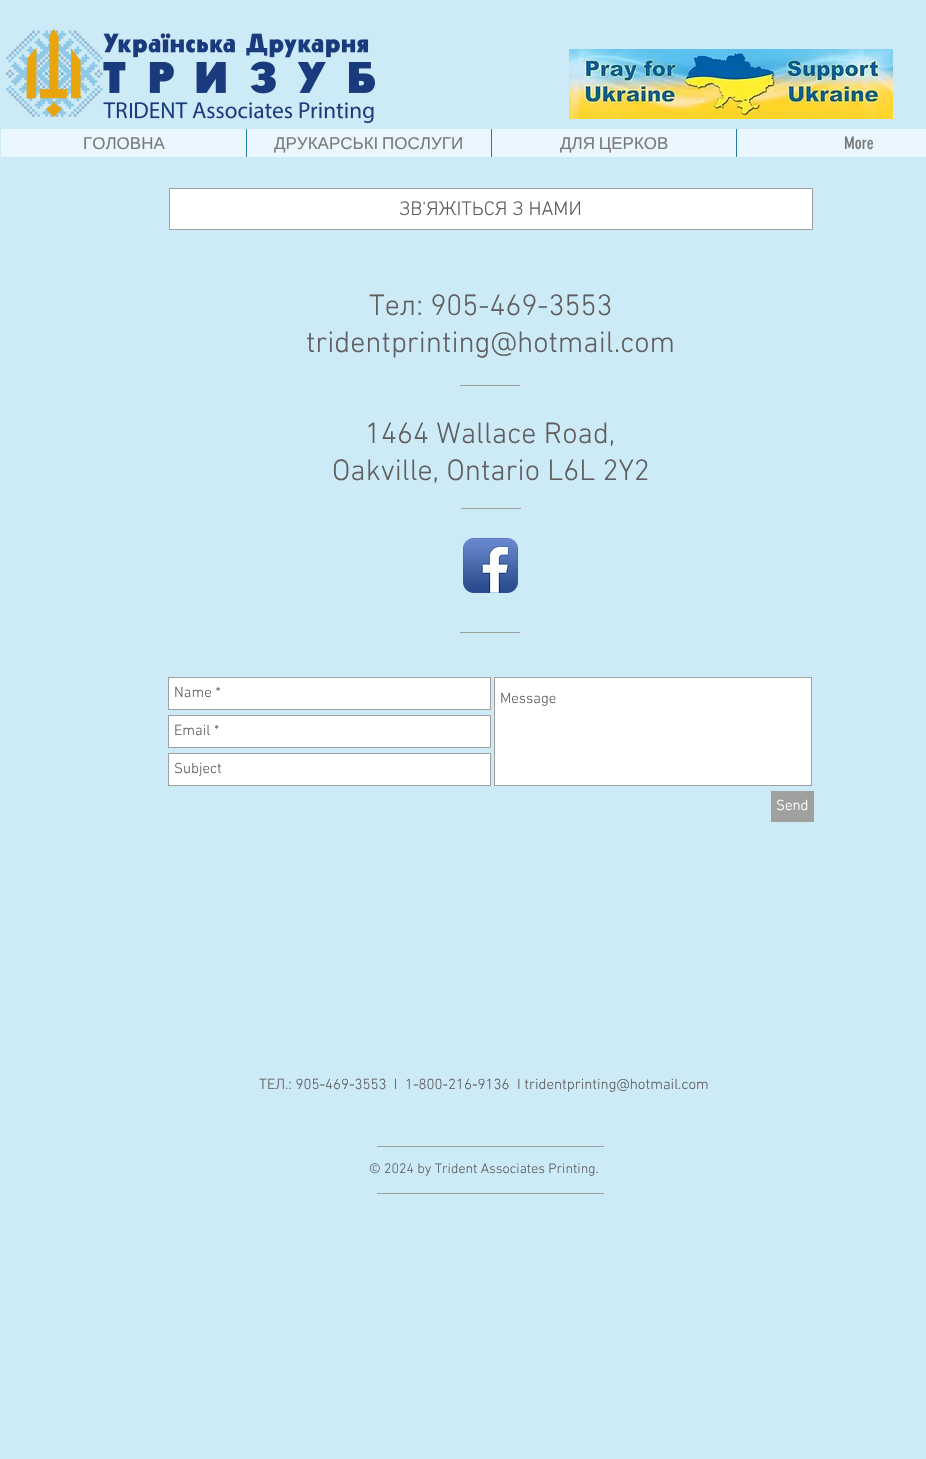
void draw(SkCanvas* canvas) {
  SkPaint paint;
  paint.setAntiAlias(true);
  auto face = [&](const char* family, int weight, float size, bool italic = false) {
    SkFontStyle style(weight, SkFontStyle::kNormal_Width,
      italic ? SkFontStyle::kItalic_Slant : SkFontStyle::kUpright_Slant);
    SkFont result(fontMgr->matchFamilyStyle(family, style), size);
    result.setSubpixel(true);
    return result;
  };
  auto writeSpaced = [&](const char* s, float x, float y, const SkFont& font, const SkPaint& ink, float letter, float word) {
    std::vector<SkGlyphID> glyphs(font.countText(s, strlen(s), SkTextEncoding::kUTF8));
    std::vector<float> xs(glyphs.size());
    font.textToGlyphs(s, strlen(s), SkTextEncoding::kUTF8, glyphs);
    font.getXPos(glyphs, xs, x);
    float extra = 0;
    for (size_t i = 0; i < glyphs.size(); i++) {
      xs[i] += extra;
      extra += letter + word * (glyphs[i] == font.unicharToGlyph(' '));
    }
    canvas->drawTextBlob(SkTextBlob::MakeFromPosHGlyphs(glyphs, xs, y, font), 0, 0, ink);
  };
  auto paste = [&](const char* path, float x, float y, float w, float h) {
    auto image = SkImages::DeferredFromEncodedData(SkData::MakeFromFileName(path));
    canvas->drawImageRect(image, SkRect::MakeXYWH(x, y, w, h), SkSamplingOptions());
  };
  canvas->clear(0xffcdeaf7);
  paste("img/1.png", 6, 29, 369, 94);
  paste("img/2.png", 569, 49, 324, 70);
  {
    const struct { float x, y, w, h; SkColor color; } items[] = {
      {1, 129, 925, 28, 0xffeaf7ff},
      {246, 129, 1, 28, 0xff207ea9},
      {491, 129, 1, 28, 0xff207ea9},
      {736, 129, 1, 28, 0xff207ea9},
    };
    for (auto [x, y, w, h, color] : items) {
      paint.setColor(color);
      canvas->drawRect(SkRect::MakeXYWH(x, y, w, h), paint);
    }
  }
  paint.setColor(0xffffffff);
  canvas->drawRect(SkRect::MakeXYWH(169.5f, 188.5f, 643, 41), paint);
  paint.setStroke(true);
  paint.setStrokeWidth(1);
  paint.setColor(0xffa0a09f);
  canvas->drawRect(SkRect::MakeXYWH(169.5f, 188.5f, 643, 41), paint);
  paint.setStroke(false);
  canvas->drawRect(SkRect::MakeXYWH(460, 385, 60, 1), paint);
  canvas->drawRect(SkRect::MakeXYWH(461, 508, 60, 1), paint);
  paste("img/3.png", 463, 538, 55, 55);
  canvas->drawRect(SkRect::MakeXYWH(460, 632, 60, 1), paint);
  paint.setColor(0xffffffff);
  canvas->drawRect(SkRect::MakeXYWH(168.5f, 677.5f, 322, 32), paint);
  paint.setStroke(true);
  paint.setColor(0xffa0a09f);
  canvas->drawRect(SkRect::MakeXYWH(168.5f, 677.5f, 322, 32), paint);
  paint.setStroke(false);
  paint.setColor(0xffffffff);
  canvas->drawRect(SkRect::MakeXYWH(494.5f, 677.5f, 317, 108), paint);
  paint.setStroke(true);
  paint.setColor(0xffa0a09f);
  canvas->drawRect(SkRect::MakeXYWH(494.5f, 677.5f, 317, 108), paint);
  paint.setStroke(false);
  paint.setColor(0xffffffff);
  canvas->drawRect(SkRect::MakeXYWH(168.5f, 715.5f, 322, 32), paint);
  paint.setStroke(true);
  paint.setColor(0xffa0a09f);
  canvas->drawRect(SkRect::MakeXYWH(168.5f, 715.5f, 322, 32), paint);
  paint.setStroke(false);
  paint.setColor(0xffffffff);
  canvas->drawRect(SkRect::MakeXYWH(168.5f, 753.5f, 322, 32), paint);
  paint.setStroke(true);
  paint.setColor(0xffa0a09f);
  canvas->drawRect(SkRect::MakeXYWH(168.5f, 753.5f, 322, 32), paint);
  paint.setStroke(false);
  {
    const struct { float x, y, w, h; SkColor color; } items[] = {
      {771, 791, 43, 31, 0xffa0a09f},
      {377, 1146, 227, 1, 0xffa0a09f},
      {377, 1193, 227, 1, 0xffa0a09f},
    };
    for (auto [x, y, w, h, color] : items) {
      paint.setColor(color);
      canvas->drawRect(SkRect::MakeXYWH(x, y, w, h), paint);
    }
  }
  auto f0 = face("Liberation Sans", 400, 17);
  paint.setColor(0xff7a7a7a);
  canvas->drawString("ГОЛОВНА", 83, 149, f0, paint);
  writeSpaced("ДРУКАРСЬКІ ПОСЛУГИ", 274, 149, f0, paint, 0, -1);
  writeSpaced("ДЛЯ ЦЕРКОВ", 560, 149, f0, paint, 0, -1);
  auto f1 = face("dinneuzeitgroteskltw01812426", 400, 17);
  canvas->drawString("More", 844, 149, f1, paint);
  auto f2 = face("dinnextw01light", 300, 20);
  paint.setColor(0xff605e5e);
  canvas->drawString("ЗВ'ЯЖІТЬСЯ З НАМИ", 399, 215, f2, paint);
  auto f3 = face("dinnextw01light", 300, 30);
  {
    const struct { const char* s; float x, y; } items[] = {
      {"Teл: 905-469-3553", 369, 315},
      {"tridentprinting@hotmail.com", 306, 352},
      {"1464 Wallace Road,", 365, 443},
      {"Oakville, Ontario L6L 2Y2", 332, 480},
    };
    for (auto [s, x, y] : items) {
      canvas->drawString(s, x, y, f3, paint);
    }
  }
  auto f4 = face("dinnextw01light", 300, 15);
  {
    const struct { const char* s; float x, y; } items[] = {
      {"Name *", 174, 697},
      {"Message", 500, 703},
      {"Email *", 174, 735},
      {"Subject", 174, 773},
    };
    for (auto [s, x, y] : items) {
      canvas->drawString(s, x, y, f4, paint);
    }
  }
  paint.setColor(0xffffffff);
  canvas->drawString("Send", 776, 810, f4, paint);
  paint.setColor(0xff605e5e);
  canvas->drawString("TЕЛ.: 905-469-3553  I  1-800-216-9136  I tridentprinting@hotmail.com", 259, 1089, f4, paint);
  auto f5 = face("dinnextw01light", 300, 14);
  canvas->drawString("© 2024 by Trident Associates Printing.", 369, 1173, f5, paint);
}
